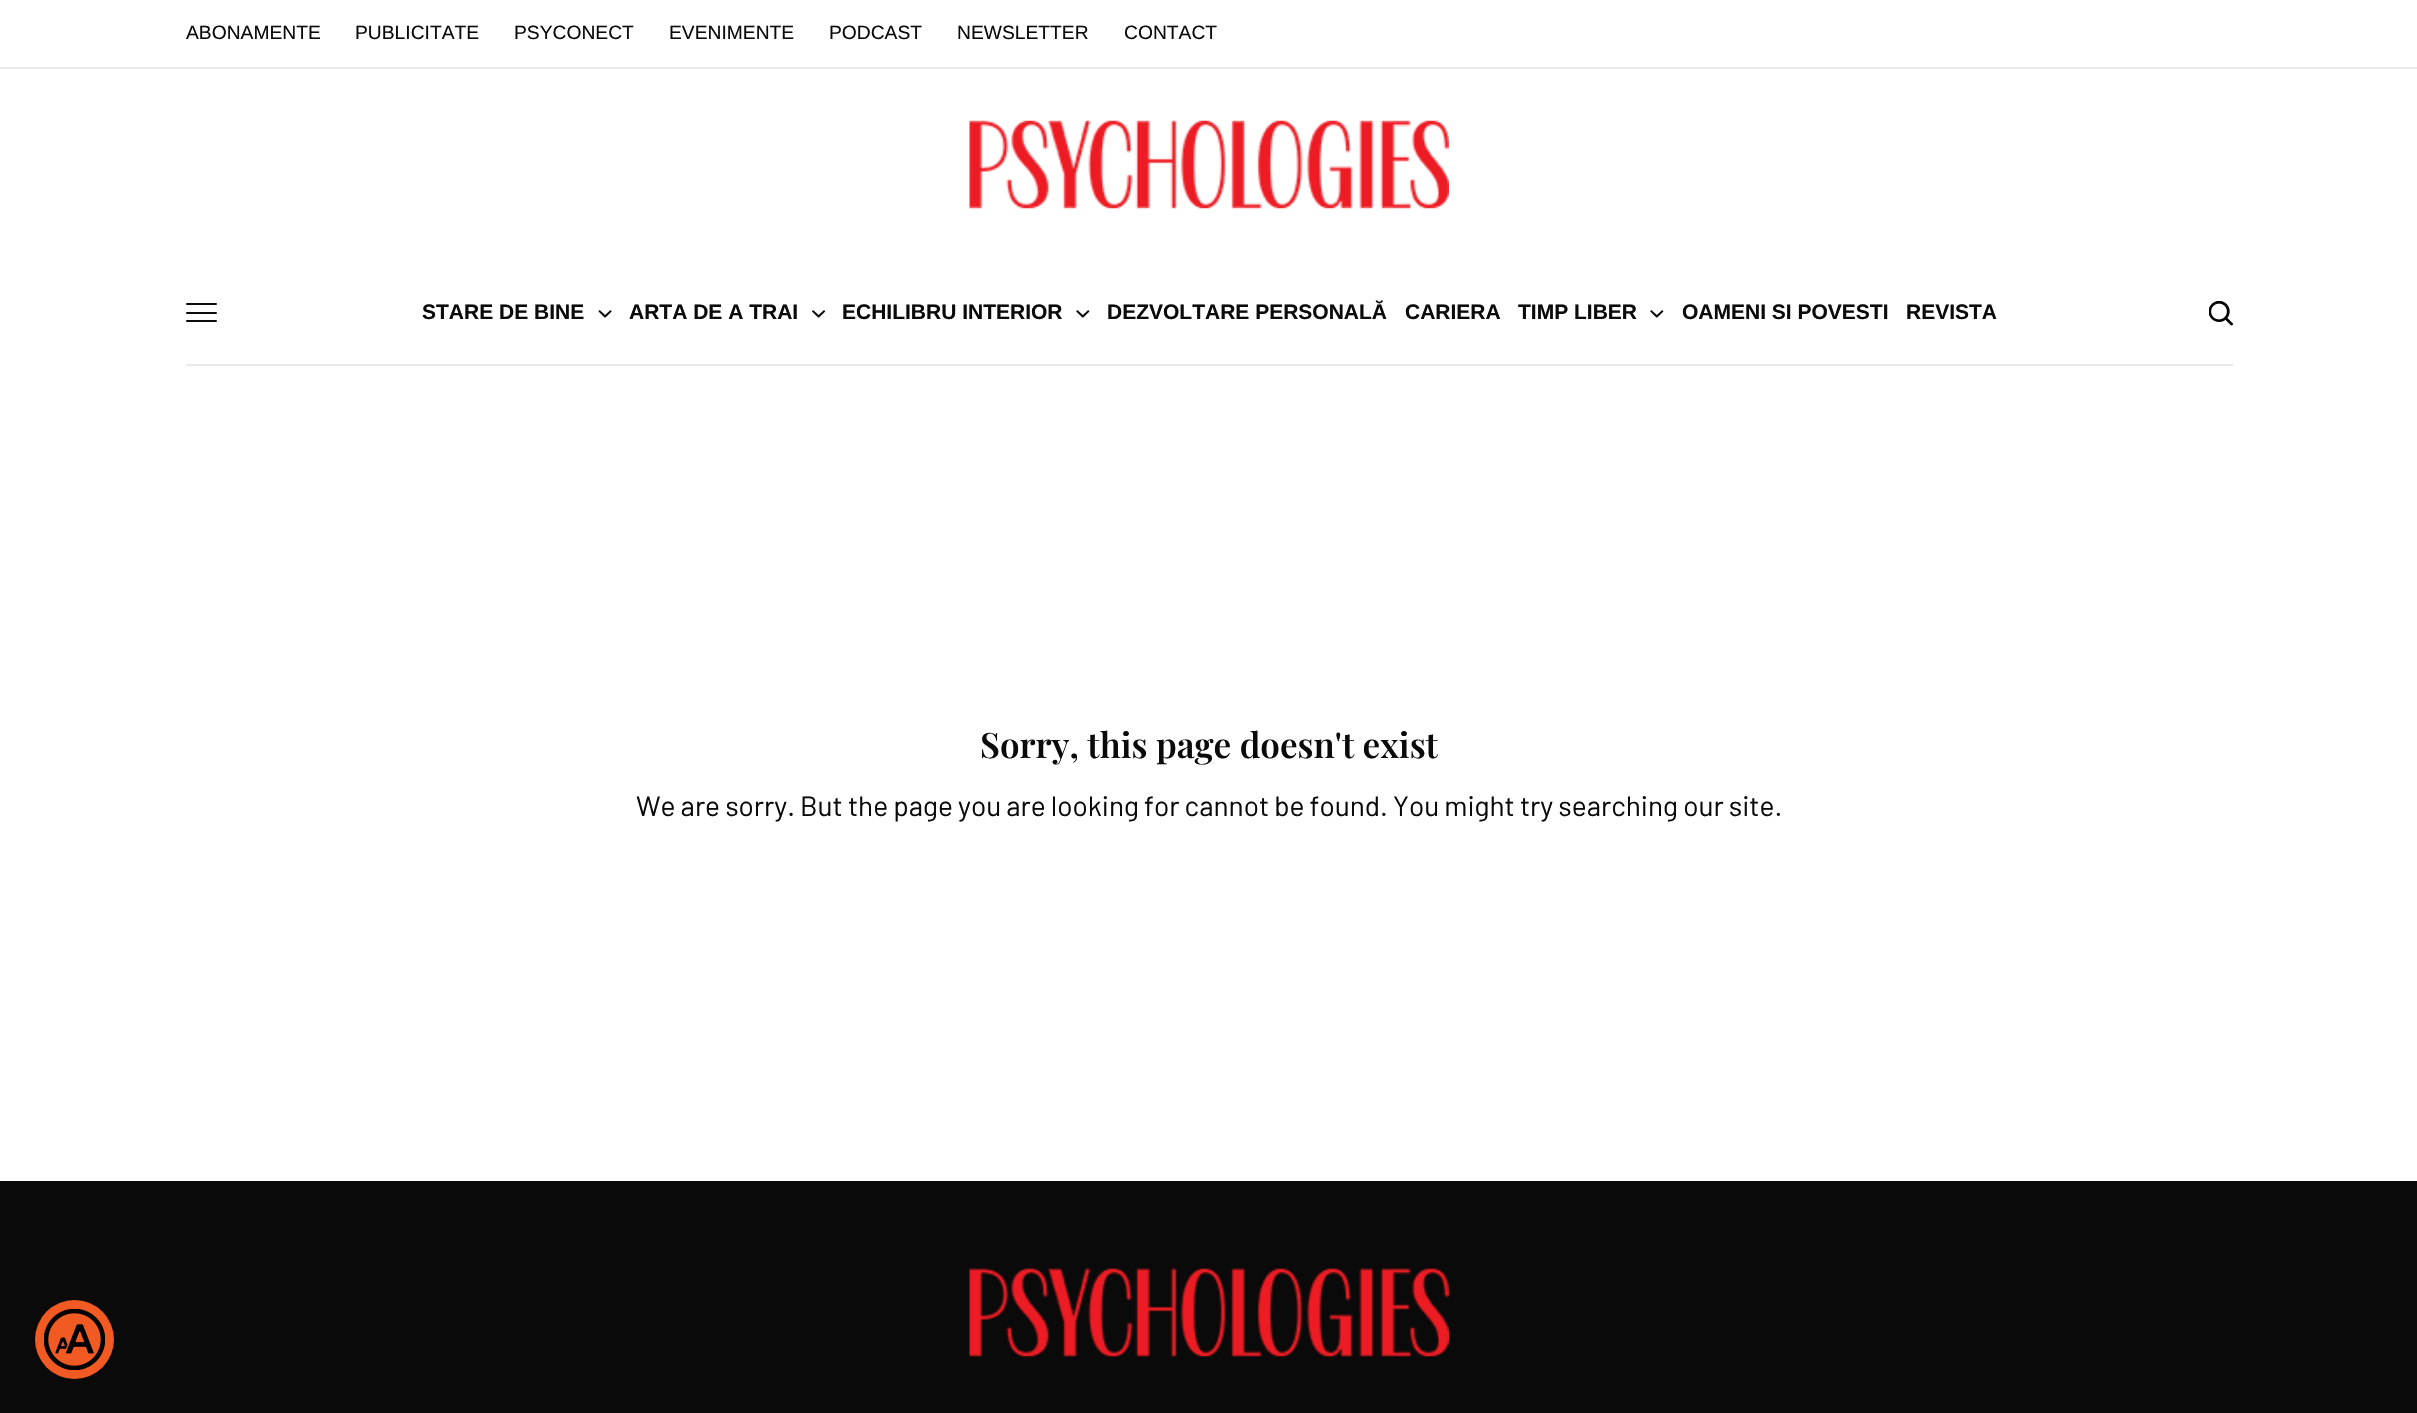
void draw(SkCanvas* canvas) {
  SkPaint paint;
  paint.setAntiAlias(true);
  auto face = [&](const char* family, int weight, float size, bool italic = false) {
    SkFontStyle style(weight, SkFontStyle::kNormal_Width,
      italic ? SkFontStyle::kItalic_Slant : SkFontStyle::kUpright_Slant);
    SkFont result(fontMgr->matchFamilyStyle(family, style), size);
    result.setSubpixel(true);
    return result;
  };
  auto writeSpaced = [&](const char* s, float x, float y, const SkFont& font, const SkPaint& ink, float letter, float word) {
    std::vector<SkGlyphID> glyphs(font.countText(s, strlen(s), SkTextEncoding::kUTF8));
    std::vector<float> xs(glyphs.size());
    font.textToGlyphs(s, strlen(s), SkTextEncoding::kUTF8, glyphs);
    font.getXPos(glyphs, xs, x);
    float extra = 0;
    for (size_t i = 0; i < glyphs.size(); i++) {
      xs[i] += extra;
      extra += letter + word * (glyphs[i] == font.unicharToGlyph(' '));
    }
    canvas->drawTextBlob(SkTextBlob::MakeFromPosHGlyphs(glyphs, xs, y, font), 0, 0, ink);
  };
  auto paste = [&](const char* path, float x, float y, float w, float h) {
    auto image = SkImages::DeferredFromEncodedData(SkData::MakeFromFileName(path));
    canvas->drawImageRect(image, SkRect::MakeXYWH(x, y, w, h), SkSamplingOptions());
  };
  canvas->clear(0xffffffff);
  paint.setColor(0xffe9e9e9);
  canvas->drawRect(SkRect::MakeXYWH(0, 67, 2417, 2), paint);
  paste("img/1.png", 969, 120, 480, 89);
  canvas->drawRect(SkRect::MakeXYWH(186, 364, 2047, 2), paint);
  paint.setColor(0xff0a0a0a);
  canvas->drawRoundRect(SkRect::MakeXYWH(186, 303, 31, 2), 1, 1, paint);
  canvas->drawRoundRect(SkRect::MakeXYWH(186, 312, 31, 2), 1, 1, paint);
  canvas->drawRoundRect(SkRect::MakeXYWH(186, 320, 31, 2), 1, 1, paint);
  paste("img/2.png", 598, 310, 14, 8);
  paste("img/3.png", 812, 310, 13, 8);
  paste("img/4.png", 1076, 310, 14, 8);
  paste("img/4.png", 1650, 310, 14, 8);
  paste("img/5.png", 2209, 301, 24, 25);
  canvas->drawRect(SkRect::MakeXYWH(0, 1181, 2417, 232), paint);
  paste("img/6.png", 969, 1268, 480, 89);
  paint.setColor(0xfff15a22);
  canvas->drawCircle(74.5f, 1339.5f, 39.5f, paint);
  paste("img/7.png", 44, 1309, 61, 61);
  auto f0 = face("Liberation Sans", 400, 19.25f);
  paint.setColor(0xff0a0a0a);
  {
    const struct { const char* s; float x, y; } items[] = {
      {"ABONAMENTE", 186, 39},
      {"PUBLICITATE", 355, 39},
      {"PSYCONECT", 514, 39},
      {"EVENIMENTE", 669, 39},
      {"PODCAST", 829, 39},
      {"NEWSLETTER", 957, 39},
      {"CONTACT", 1124, 39},
    };
    for (auto [s, x, y] : items) {
      canvas->drawString(s, x, y, f0, paint);
    }
  }
  auto f1 = face("Liberation Sans", 700, 21);
  {
    const struct { const char* s; float x, y; } items[] = {
      {"STARE DE BINE", 422, 319},
      {"ARTA DE A TRAI", 629, 319},
      {"ECHILIBRU INTERIOR", 842, 319},
      {"DEZVOLTARE PERSONALĂ", 1107, 319},
      {"CARIERA", 1405, 319},
      {"TIMP LIBER", 1518, 319},
      {"OAMENI SI POVESTI", 1682, 319},
      {"REVISTA", 1906, 319},
    };
    for (auto [s, x, y] : items) {
      canvas->drawString(s, x, y, f1, paint);
    }
  }
  auto f2 = face("Playfair Display", 600, 35);
  canvas->drawString("Sorry, this page doesn't exist", 980, 758, f2, paint);
  auto f3 = face("Barlow", 400, 28);
  writeSpaced("We are sorry. But the page you are looking for cannot be found. You might try searching our site.", 636, 816, f3, paint, 0, -0.5f);
}
